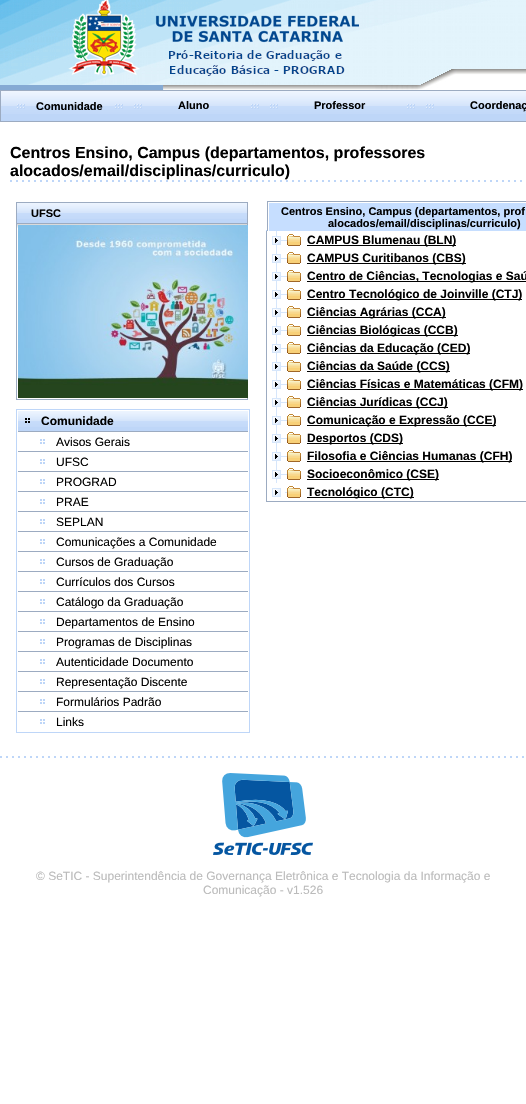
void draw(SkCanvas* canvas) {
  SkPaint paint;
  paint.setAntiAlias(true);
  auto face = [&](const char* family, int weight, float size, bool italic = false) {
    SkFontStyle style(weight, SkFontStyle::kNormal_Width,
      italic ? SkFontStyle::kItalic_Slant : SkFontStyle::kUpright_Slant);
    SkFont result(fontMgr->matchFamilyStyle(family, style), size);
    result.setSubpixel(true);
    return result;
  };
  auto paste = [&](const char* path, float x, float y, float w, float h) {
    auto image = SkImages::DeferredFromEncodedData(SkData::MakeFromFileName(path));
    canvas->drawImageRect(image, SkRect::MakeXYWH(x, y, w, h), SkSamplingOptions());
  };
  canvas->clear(0xffffffff);
  paste("img/1.png", 0, 0, 526, 90);
  paint.setColor(0xffbed6f8);
  canvas->drawRect(SkRect::MakeXYWH(1, 114, 525, 7), paint);
  paste("img/2.png", 1, 91, 525, 23);
  paint.setStroke(true);
  paint.setStrokeWidth(1);
  paint.setColor(0xff9cabc1);
  canvas->drawRect(SkRect::MakeXYWH(0.5f, 90.5f, 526, 31), paint);
  paste("img/3.png", 17, 104, 8, 5);
  paste("img/3.png", 115, 104, 8, 5);
  paste("img/3.png", 134, 104, 8, 5);
  paste("img/3.png", 251, 104, 8, 5);
  paste("img/3.png", 270, 104, 8, 5);
  paste("img/3.png", 407, 104, 8, 5);
  paste("img/3.png", 426, 104, 8, 5);
  paste("img/4.png", 10, 180, 512, 2);
  canvas->drawRect(SkRect::MakeXYWH(16.5f, 202.5f, 231, 197), paint);
  paint.setStroke(false);
  paint.setColor(0xffbed6f8);
  canvas->drawRect(SkRect::MakeXYWH(17, 219, 230, 4), paint);
  paste("img/5.png", 17, 203, 230, 16);
  paint.setColor(0xff9cabc1);
  canvas->drawRect(SkRect::MakeXYWH(17, 223, 230, 1), paint);
  paste("img/6.png", 17, 224, 230, 4);
  paste("img/7.png", 18, 225, 230, 173);
  paint.setStroke(true);
  paint.setColor(0xffbed6f8);
  canvas->drawRect(SkRect::MakeXYWH(16.5f, 409.5f, 233, 323), paint);
  paint.setStroke(false);
  canvas->drawRect(SkRect::MakeXYWH(18, 427, 230, 4), paint);
  paste("img/5.png", 18, 411, 230, 16);
  paste("img/8.png", 25, 418, 5, 5);
  paint.setColor(0xff9cabc1);
  canvas->drawRect(SkRect::MakeXYWH(18, 431, 230, 1), paint);
  paste("img/9.png", 40, 439, 5, 5);
  canvas->drawRect(SkRect::MakeXYWH(18, 451, 230, 1), paint);
  paste("img/9.png", 40, 459, 5, 5);
  canvas->drawRect(SkRect::MakeXYWH(18, 471, 230, 1), paint);
  paste("img/9.png", 40, 479, 5, 5);
  canvas->drawRect(SkRect::MakeXYWH(18, 491, 230, 1), paint);
  paste("img/9.png", 40, 499, 5, 5);
  canvas->drawRect(SkRect::MakeXYWH(18, 511, 230, 1), paint);
  paste("img/9.png", 40, 519, 5, 5);
  canvas->drawRect(SkRect::MakeXYWH(18, 531, 230, 1), paint);
  paste("img/9.png", 40, 539, 5, 5);
  canvas->drawRect(SkRect::MakeXYWH(18, 551, 230, 1), paint);
  paste("img/9.png", 40, 559, 5, 5);
  canvas->drawRect(SkRect::MakeXYWH(18, 571, 230, 1), paint);
  paste("img/9.png", 40, 579, 5, 5);
  canvas->drawRect(SkRect::MakeXYWH(18, 591, 230, 1), paint);
  paste("img/9.png", 40, 599, 5, 5);
  canvas->drawRect(SkRect::MakeXYWH(18, 611, 230, 1), paint);
  paste("img/9.png", 40, 619, 5, 5);
  canvas->drawRect(SkRect::MakeXYWH(18, 631, 230, 1), paint);
  paste("img/9.png", 40, 639, 5, 5);
  canvas->drawRect(SkRect::MakeXYWH(18, 651, 230, 1), paint);
  paste("img/9.png", 40, 659, 5, 5);
  canvas->drawRect(SkRect::MakeXYWH(18, 671, 230, 1), paint);
  paste("img/9.png", 40, 679, 5, 5);
  canvas->drawRect(SkRect::MakeXYWH(18, 691, 230, 1), paint);
  paste("img/9.png", 40, 699, 5, 5);
  canvas->drawRect(SkRect::MakeXYWH(18, 711, 230, 1), paint);
  paste("img/9.png", 40, 719, 5, 5);
  {
    const struct { float x, y, w, h; SkColor color; } items[] = {
      {266, 230, 1, 1, 0xffbed6f8},
      {267, 201, 1, 30, 0xff9cabc1},
      {268, 201, 258, 1, 0xff9cabc1},
      {269, 203, 257, 28, 0xffc6deff},
      {266, 501, 260, 1, 0xff9cabc1},
      {266, 231, 1, 271, 0xff9cabc1},
    };
    for (auto [x, y, w, h, color] : items) {
      paint.setColor(color);
      canvas->drawRect(SkRect::MakeXYWH(x, y, w, h), paint);
    }
  }
  paste("img/10.png", 276, 231, 9, 18);
  paste("img/11.png", 272, 236, 9, 9);
  paint.setColor(0xffd6e6fb);
  canvas->drawRect(SkRect::MakeXYWH(285, 240, 10, 1), paint);
  paste("img/12.png", 287, 234, 14, 12);
  paint.setColor(0xff000000);
  canvas->drawRect(SkRect::MakeXYWH(307, 245, 149, 1), paint);
  paste("img/10.png", 276, 249, 9, 18);
  paste("img/11.png", 272, 254, 9, 9);
  paint.setColor(0xffd6e6fb);
  canvas->drawRect(SkRect::MakeXYWH(285, 258, 10, 1), paint);
  paste("img/12.png", 287, 252, 14, 12);
  paint.setColor(0xff000000);
  canvas->drawRect(SkRect::MakeXYWH(307, 263, 159, 1), paint);
  paste("img/10.png", 276, 267, 9, 18);
  paste("img/11.png", 272, 272, 9, 9);
  paint.setColor(0xffd6e6fb);
  canvas->drawRect(SkRect::MakeXYWH(285, 276, 10, 1), paint);
  paste("img/12.png", 287, 270, 14, 12);
  paint.setColor(0xff000000);
  canvas->drawRect(SkRect::MakeXYWH(307, 281, 219, 1), paint);
  paste("img/10.png", 276, 285, 9, 18);
  paste("img/11.png", 272, 290, 9, 9);
  paint.setColor(0xffd6e6fb);
  canvas->drawRect(SkRect::MakeXYWH(285, 294, 10, 1), paint);
  paste("img/12.png", 287, 288, 14, 12);
  paint.setColor(0xff000000);
  canvas->drawRect(SkRect::MakeXYWH(307, 299, 215, 1), paint);
  paste("img/10.png", 276, 303, 9, 18);
  paste("img/11.png", 272, 308, 9, 9);
  paint.setColor(0xffd6e6fb);
  canvas->drawRect(SkRect::MakeXYWH(285, 312, 10, 1), paint);
  paste("img/12.png", 287, 306, 14, 12);
  paint.setColor(0xff000000);
  canvas->drawRect(SkRect::MakeXYWH(307, 317, 139, 1), paint);
  paste("img/10.png", 276, 321, 9, 18);
  paste("img/11.png", 272, 326, 9, 9);
  paint.setColor(0xffd6e6fb);
  canvas->drawRect(SkRect::MakeXYWH(285, 330, 10, 1), paint);
  paste("img/12.png", 287, 324, 14, 12);
  paint.setColor(0xff000000);
  canvas->drawRect(SkRect::MakeXYWH(307, 335, 151, 1), paint);
  paste("img/10.png", 276, 339, 9, 18);
  paste("img/11.png", 272, 344, 9, 9);
  paint.setColor(0xffd6e6fb);
  canvas->drawRect(SkRect::MakeXYWH(285, 348, 10, 1), paint);
  paste("img/12.png", 287, 342, 14, 12);
  paint.setColor(0xff000000);
  canvas->drawRect(SkRect::MakeXYWH(307, 353, 163, 1), paint);
  paste("img/10.png", 276, 357, 9, 18);
  paste("img/11.png", 272, 362, 9, 9);
  paint.setColor(0xffd6e6fb);
  canvas->drawRect(SkRect::MakeXYWH(285, 366, 10, 1), paint);
  paste("img/12.png", 287, 360, 14, 12);
  paint.setColor(0xff000000);
  canvas->drawRect(SkRect::MakeXYWH(307, 371, 143, 1), paint);
  paste("img/10.png", 276, 375, 9, 18);
  paste("img/11.png", 272, 380, 9, 9);
  paint.setColor(0xffd6e6fb);
  canvas->drawRect(SkRect::MakeXYWH(285, 384, 10, 1), paint);
  paste("img/12.png", 287, 378, 14, 12);
  paint.setColor(0xff000000);
  canvas->drawRect(SkRect::MakeXYWH(307, 389, 216, 1), paint);
  paste("img/10.png", 276, 393, 9, 18);
  paste("img/11.png", 272, 398, 9, 9);
  paint.setColor(0xffd6e6fb);
  canvas->drawRect(SkRect::MakeXYWH(285, 402, 10, 1), paint);
  paste("img/12.png", 287, 396, 14, 12);
  paint.setColor(0xff000000);
  canvas->drawRect(SkRect::MakeXYWH(307, 407, 141, 1), paint);
  paste("img/10.png", 276, 411, 9, 18);
  paste("img/11.png", 272, 416, 9, 9);
  paint.setColor(0xffd6e6fb);
  canvas->drawRect(SkRect::MakeXYWH(285, 420, 10, 1), paint);
  paste("img/12.png", 287, 414, 14, 12);
  paint.setColor(0xff000000);
  canvas->drawRect(SkRect::MakeXYWH(307, 425, 189, 1), paint);
  paste("img/10.png", 276, 429, 9, 18);
  paste("img/11.png", 272, 434, 9, 9);
  paint.setColor(0xffd6e6fb);
  canvas->drawRect(SkRect::MakeXYWH(285, 438, 10, 1), paint);
  paste("img/12.png", 287, 432, 14, 12);
  paint.setColor(0xff000000);
  canvas->drawRect(SkRect::MakeXYWH(307, 443, 96, 1), paint);
  paste("img/10.png", 276, 447, 9, 18);
  paste("img/11.png", 272, 452, 9, 9);
  paint.setColor(0xffd6e6fb);
  canvas->drawRect(SkRect::MakeXYWH(285, 456, 10, 1), paint);
  paste("img/12.png", 287, 450, 14, 12);
  paint.setColor(0xff000000);
  canvas->drawRect(SkRect::MakeXYWH(307, 461, 205, 1), paint);
  paste("img/10.png", 276, 465, 9, 18);
  paste("img/11.png", 272, 470, 9, 9);
  paint.setColor(0xffd6e6fb);
  canvas->drawRect(SkRect::MakeXYWH(285, 474, 10, 1), paint);
  paste("img/12.png", 287, 468, 14, 12);
  paint.setColor(0xff000000);
  canvas->drawRect(SkRect::MakeXYWH(307, 479, 132, 1), paint);
  paste("img/11.png", 272, 488, 9, 9);
  paint.setColor(0xffd6e6fb);
  canvas->drawRect(SkRect::MakeXYWH(285, 492, 10, 1), paint);
  paste("img/12.png", 287, 486, 14, 12);
  paint.setColor(0xff000000);
  canvas->drawRect(SkRect::MakeXYWH(307, 497, 107, 1), paint);
  paste("img/13.png", 0, 756, 524, 2);
  paste("img/14.png", 213, 773, 100, 82);
  auto f0 = face("Liberation Sans", 700, 11);
  {
    const struct { const char* s; float x, y; } items[] = {
      {"Comunidade", 36, 110},
      {"Aluno", 178, 109},
      {"Professor", 314, 109},
      {"Coordenaç", 470, 109},
    };
    for (auto [s, x, y] : items) {
      canvas->drawString(s, x, y, f0, paint);
    }
  }
  auto f1 = face("Liberation Sans", 700, 16);
  canvas->drawString("Centros Ensino, Campus (departamentos, professores", 10, 158, f1, paint);
  canvas->drawString("alocados/email/disciplinas/curriculo)", 10, 176, f1, paint);
  canvas->drawString("UFSC", 31, 217, f0, paint);
  auto f2 = face("Liberation Sans", 700, 12);
  canvas->drawString("Comunidade", 41, 425, f2, paint);
  auto f3 = face("Liberation Sans", 400, 12);
  {
    const struct { const char* s; float x, y; } items[] = {
      {"Avisos Gerais", 56, 446},
      {"UFSC", 56, 466},
      {"PROGRAD", 56, 486},
      {"PRAE", 56, 506},
      {"SEPLAN", 56, 526},
      {"Comunicações a Comunidade", 56, 546},
      {"Cursos de Graduação", 56, 566},
      {"Currículos dos Cursos", 56, 586},
      {"Catálogo da Graduação", 56, 606},
      {"Departamentos de Ensino", 56, 626},
      {"Programas de Disciplinas", 56, 646},
      {"Autenticidade Documento", 56, 666},
      {"Representação Discente", 56, 686},
      {"Formulários Padrão", 56, 706},
      {"Links", 56, 726},
    };
    for (auto [s, x, y] : items) {
      canvas->drawString(s, x, y, f3, paint);
    }
  }
  canvas->drawString("Centros Ensino, Campus (departamentos, prof", 281, 215, f0, paint);
  canvas->drawString("alocados/email/disciplinas/curriculo)", 328, 227, f0, paint);
  {
    const struct { const char* s; float x, y; } items[] = {
      {"CAMPUS Blumenau (BLN)", 307, 244},
      {"CAMPUS Curitibanos (CBS)", 307, 262},
      {"Centro de Ciências, Tecnologias e Saú", 307, 280},
      {"Centro Tecnológico de Joinville (CTJ)", 307, 298},
      {"Ciências Agrárias (CCA)", 307, 316},
      {"Ciências Biológicas (CCB)", 307, 334},
      {"Ciências da Educação (CED)", 307, 352},
      {"Ciências da Saúde (CCS)", 307, 370},
      {"Ciências Físicas e Matemáticas (CFM)", 307, 388},
      {"Ciências Jurídicas (CCJ)", 307, 406},
      {"Comunicação e Expressão (CCE)", 307, 424},
      {"Desportos (CDS)", 307, 442},
      {"Filosofia e Ciências Humanas (CFH)", 307, 460},
      {"Socioeconômico (CSE)", 307, 478},
      {"Tecnológico (CTC)", 307, 496},
    };
    for (auto [s, x, y] : items) {
      canvas->drawString(s, x, y, f2, paint);
    }
  }
  paint.setColor(0xffbbbbbb);
  canvas->drawString("© SeTIC - Superintendência de Governança Eletrônica e Tecnologia da Informação e", 36, 880, f3, paint);
  canvas->drawString("Comunicação - v1.526", 203, 894, f3, paint);
}
